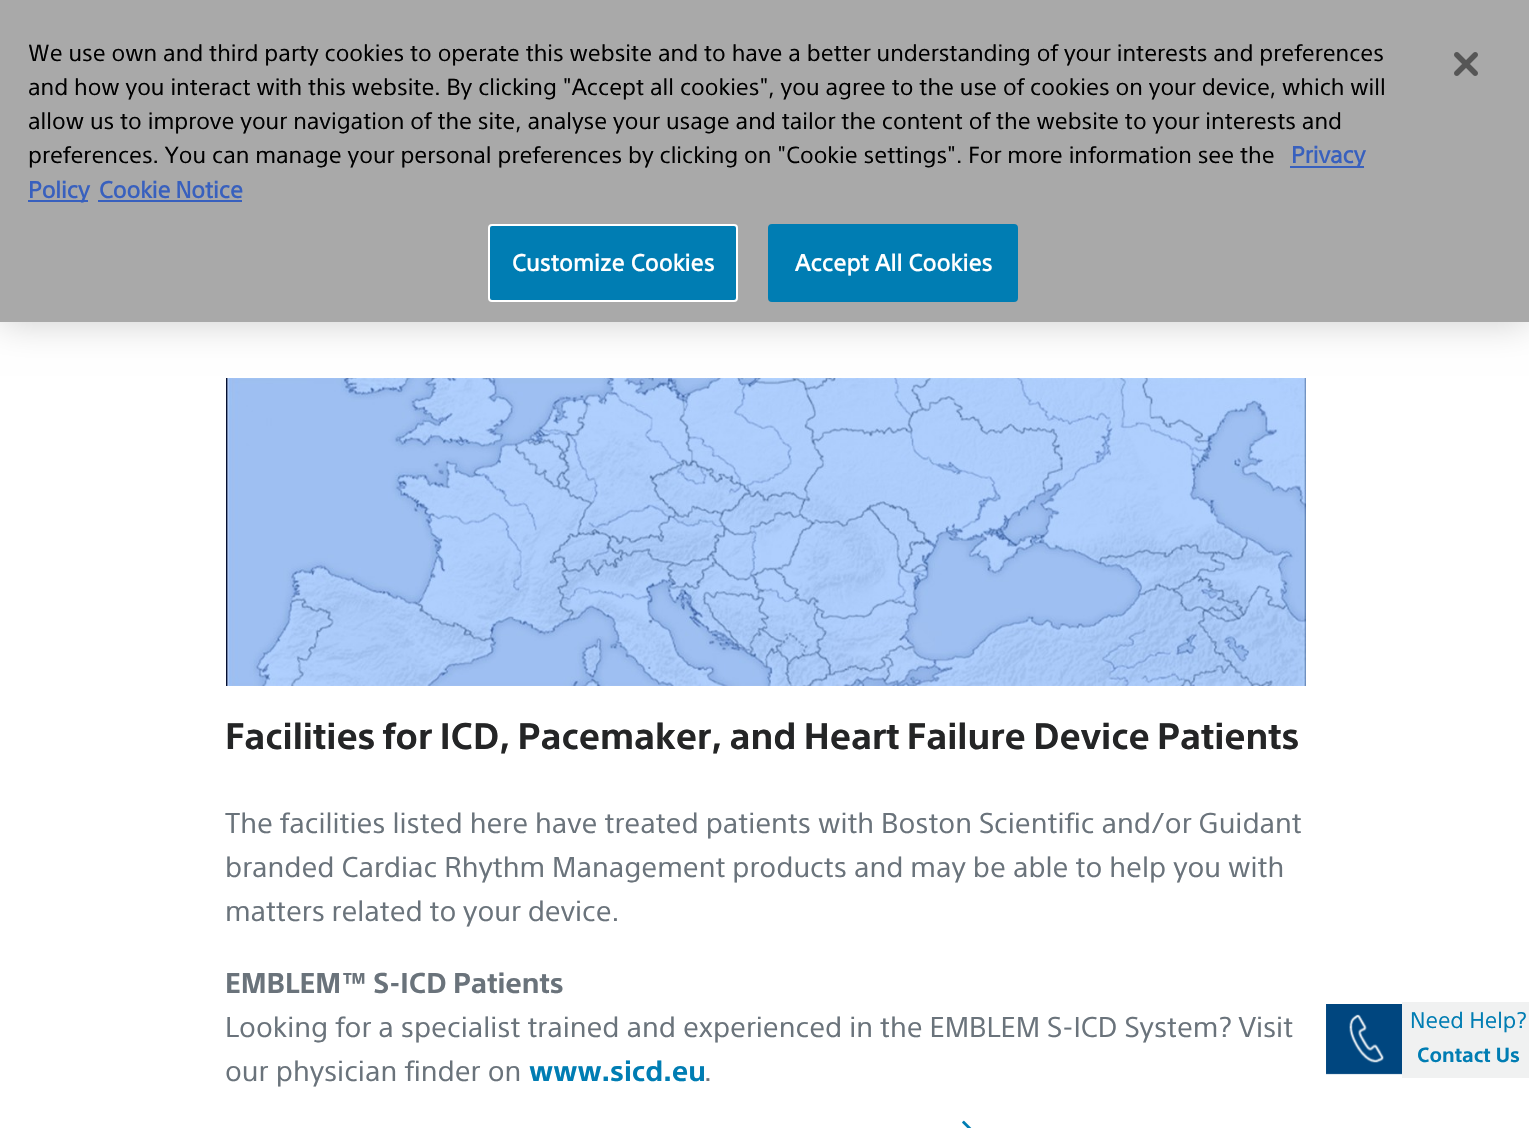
void draw(SkCanvas* canvas) {
  SkPaint paint;
  paint.setAntiAlias(true);
  auto face = [&](const char* family, int weight, float size, bool italic = false) {
    SkFontStyle style(weight, SkFontStyle::kNormal_Width,
      italic ? SkFontStyle::kItalic_Slant : SkFontStyle::kUpright_Slant);
    SkFont result(fontMgr->matchFamilyStyle(family, style), size);
    result.setSubpixel(true);
    return result;
  };
  auto writeSpaced = [&](const char* s, float x, float y, const SkFont& font, const SkPaint& ink, float letter, float word) {
    std::vector<SkGlyphID> glyphs(font.countText(s, strlen(s), SkTextEncoding::kUTF8));
    std::vector<float> xs(glyphs.size());
    font.textToGlyphs(s, strlen(s), SkTextEncoding::kUTF8, glyphs);
    font.getXPos(glyphs, xs, x);
    float extra = 0;
    for (size_t i = 0; i < glyphs.size(); i++) {
      xs[i] += extra;
      extra += letter + word * (glyphs[i] == font.unicharToGlyph(' '));
    }
    canvas->drawTextBlob(SkTextBlob::MakeFromPosHGlyphs(glyphs, xs, y, font), 0, 0, ink);
  };
  auto paste = [&](const char* path, float x, float y, float w, float h) {
    auto image = SkImages::DeferredFromEncodedData(SkData::MakeFromFileName(path));
    canvas->drawImageRect(image, SkRect::MakeXYWH(x, y, w, h), SkSamplingOptions());
  };
  canvas->clear(0xffffffff);
  paint.setColor(0x33000000);
  paint.setMaskFilter(SkMaskFilter::MakeBlur(kNormal_SkBlurStyle, 18));
  canvas->drawRect(SkRect::MakeXYWH(0, 0, 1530, 322), paint);
  paint.setMaskFilter(nullptr);
  {
    const struct { float x, y, w, h; SkColor color; } items[] = {
      {0, 0, 1529, 322, 0xffa9a9a9},
      {1290, 166, 74, 2, 0xff3860be},
      {28, 200, 60, 2, 0xff3860be},
      {98, 200, 144, 2, 0xff3860be},
    };
    for (auto [x, y, w, h, color] : items) {
      paint.setColor(color);
      canvas->drawRect(SkRect::MakeXYWH(x, y, w, h), paint);
    }
  }
  paint.setColor(0xff007db3);
  canvas->drawRoundRect(SkRect::MakeXYWH(489, 225, 248, 76), 3, 3, paint);
  paint.setStroke(true);
  paint.setStrokeWidth(2);
  paint.setColor(0xffffffff);
  canvas->drawRoundRect(SkRect::MakeXYWH(489, 225, 248, 76), 3, 3, paint);
  paint.setStroke(false);
  paint.setColor(0xff007db3);
  canvas->drawRoundRect(SkRect::MakeXYWH(769, 225, 248, 76), 3, 3, paint);
  paint.setStroke(true);
  canvas->drawRoundRect(SkRect::MakeXYWH(769, 225, 248, 76), 3, 3, paint);
  paste("img/1.png", 1454, 52, 24, 24);
  paste("img/2.png", 226, 378, 1080, 308);
  paste("img/3.png", 962, 1120, 10, 8);
  paste("img/4.png", 1326, 1004, 76, 71);
  paint.setStroke(false);
  paint.setColor(0xfff0f1f1);
  canvas->drawRect(SkRect::MakeXYWH(1402, 1002, 127, 76), paint);
  auto f0 = face("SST", 400, 22.75f);
  paint.setColor(0xff000000);
  {
    const struct { const char* s; float x, y; } items[] = {
      {"We use own and third party cookies to operate this website and to have a better understanding of your interests and preferences", 28, 61},
      {"and how you interact with this website. By clicking \"Accept all cookies\", you agree to the use of cookies on your device, which will", 28, 95},
      {"allow us to improve your navigation of the site, analyse your usage and tailor the content of the website to your interests and", 28, 129},
      {"preferences. You can manage your personal preferences by clicking on \"Cookie settings\". For more information see the", 28, 163},
    };
    for (auto [s, x, y] : items) {
      canvas->drawString(s, x, y, f0, paint);
    }
  }
  auto f1 = face("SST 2", 700, 22.75f);
  paint.setColor(0xff3860be);
  canvas->drawString("Privacy", 1291, 163, f1, paint);
  canvas->drawString("Policy", 28, 198, f1, paint);
  writeSpaced("Cookie Notice", 99, 198, f1, paint, 0, -1);
  paint.setColor(0xffffffff);
  writeSpaced("Customize Cookies", 512, 271, f1, paint, 0.25f, 0);
  writeSpaced("Accept All Cookies", 795, 271, f1, paint, 0.25f, 0);
  auto f2 = face("SST", 700, 36);
  paint.setColor(0xff242526);
  writeSpaced("Facilities for ICD, Pacemaker, and Heart Failure Device Patients", 225, 749, f2, paint, 0, -2);
  auto f3 = face("SST", 400, 28);
  paint.setColor(0xff6a737b);
  writeSpaced("The facilities listed here have treated patients with Boston Scientific and/or Guidant", 225, 833, f3, paint, 0, -0.25f);
  writeSpaced("branded Cardiac Rhythm Management products and may be able to help you with", 225, 877, f3, paint, 0, -0.25f);
  writeSpaced("matters related to your device.", 225, 921, f3, paint, 0, -0.5f);
  auto f4 = face("SST", 700, 28);
  writeSpaced("EMBLEM™ S-ICD Patients", 225, 993, f4, paint, 0, -1);
  writeSpaced("Looking for a specialist trained and experienced in the EMBLEM S-ICD System? Visit", 225, 1037, f3, paint, 0, -0.25f);
  canvas->drawString("our physician finder on", 225, 1081, f3, paint);
  paint.setColor(0xff007db3);
  canvas->drawString("www.sicd.eu", 529, 1081, f4, paint);
  paint.setColor(0xff6a737b);
  canvas->drawString(".", 704, 1081, f3, paint);
  auto f5 = face("SST", 400, 22);
  paint.setColor(0xff007db3);
  canvas->drawString("Need Help?", 1410, 1028, f5, paint);
  auto f6 = face("SST", 700, 20);
  canvas->drawString("Contact Us", 1417, 1062, f6, paint);
}
